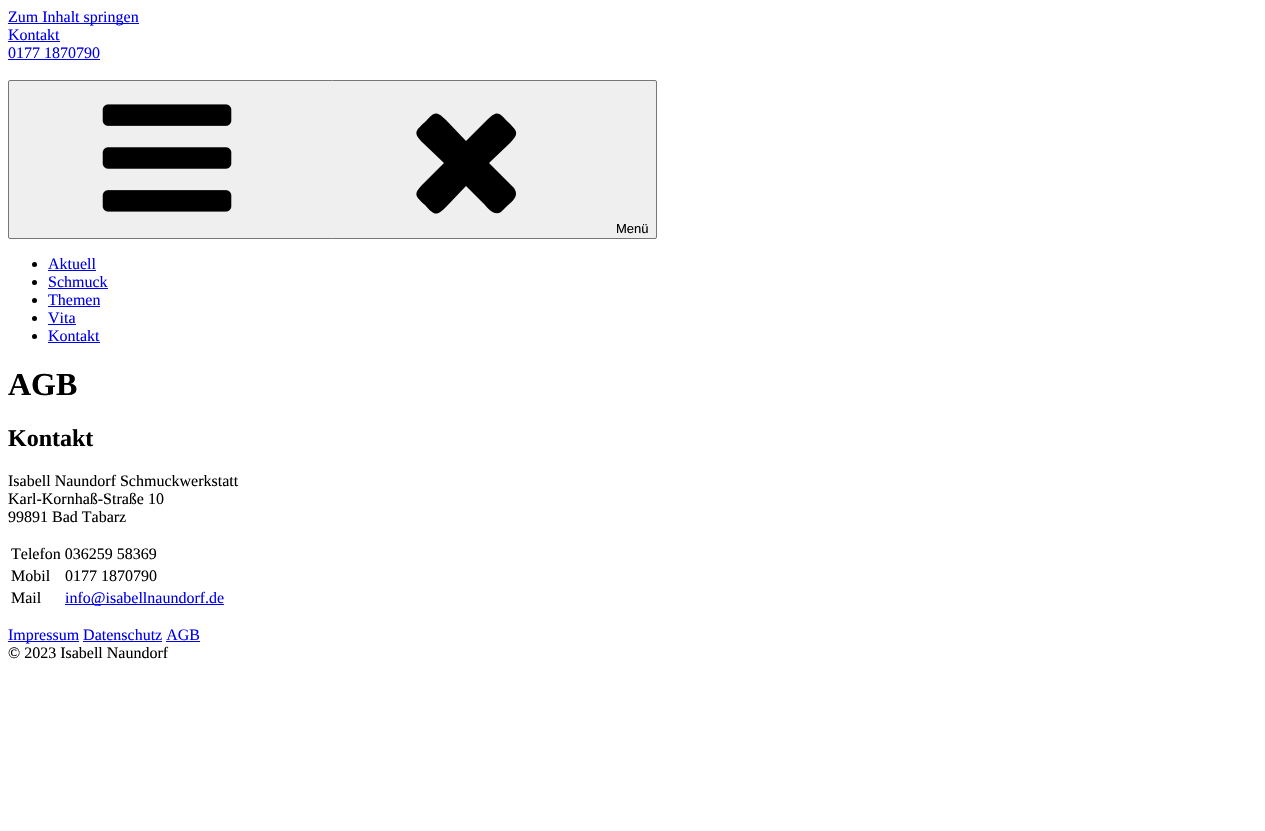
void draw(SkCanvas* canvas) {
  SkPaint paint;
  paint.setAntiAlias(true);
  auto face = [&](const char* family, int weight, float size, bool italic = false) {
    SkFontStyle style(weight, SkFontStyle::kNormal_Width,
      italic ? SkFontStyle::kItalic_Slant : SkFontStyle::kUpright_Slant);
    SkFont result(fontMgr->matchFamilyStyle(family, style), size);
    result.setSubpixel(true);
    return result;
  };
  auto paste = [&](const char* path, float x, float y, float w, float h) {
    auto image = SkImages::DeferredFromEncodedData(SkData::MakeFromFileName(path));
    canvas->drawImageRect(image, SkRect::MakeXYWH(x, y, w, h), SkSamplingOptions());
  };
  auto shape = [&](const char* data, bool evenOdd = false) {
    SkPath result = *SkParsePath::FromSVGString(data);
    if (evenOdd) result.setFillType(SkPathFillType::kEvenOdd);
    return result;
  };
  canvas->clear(0xffffffff);
  {
    const struct { float x, y, w, h; SkColor color; } items[] = {
      {8, 23, 131, 1, 0xff0000ee},
      {8, 41, 52, 1, 0xff0000ee},
      {8, 59, 92, 1, 0xff0000ee},
    };
    for (auto [x, y, w, h, color] : items) {
      paint.setColor(color);
      canvas->drawRect(SkRect::MakeXYWH(x, y, w, h), paint);
    }
  }
  paint.setColor(0xffefefef);
  canvas->drawRoundRect(SkRect::MakeXYWH(8.5f, 80.5f, 648, 158), 1.5f, 1.5f, paint);
  paint.setStroke(true);
  paint.setStrokeWidth(1);
  paint.setColor(0xff767676);
  canvas->drawRoundRect(SkRect::MakeXYWH(8.5f, 80.5f, 648, 158), 1.5f, 1.5f, paint);
  paste("img/1.png", 102, 104, 130, 108);
  paint.setStroke(false);
  paint.setColor(0xff000000);
  canvas->drawPath(shape("M516 194C516 199 510 203 506 207L501 212C494 217 487 207 483 203L466 186L446 207C436 217 434 215 425 205C415 196 413 194 423 184L444 163L423 143C413 133 415 131 425 122C434 112 436 110 446 120L466 141L487 120C497 110 499 112 508 122C517 131 520 133 510 143L489 163L514 188C515 190 516 191 516 194Z"), paint);
  canvas->drawCircle(34.5f, 264.5f, 2.5f, paint);
  paint.setColor(0xff0000ee);
  canvas->drawRect(SkRect::MakeXYWH(48, 270, 48, 1), paint);
  paint.setColor(0xff000000);
  canvas->drawCircle(34.5f, 282.5f, 2.5f, paint);
  paint.setColor(0xff0000ee);
  canvas->drawRect(SkRect::MakeXYWH(48, 288, 60, 1), paint);
  paint.setColor(0xff000000);
  canvas->drawCircle(34.5f, 300.5f, 2.5f, paint);
  paint.setColor(0xff0000ee);
  canvas->drawRect(SkRect::MakeXYWH(48, 306, 52, 1), paint);
  paint.setColor(0xff000000);
  canvas->drawCircle(34.5f, 318.5f, 2.5f, paint);
  paint.setColor(0xff0000ee);
  canvas->drawRect(SkRect::MakeXYWH(48, 324, 28, 1), paint);
  paint.setColor(0xff000000);
  canvas->drawCircle(34.5f, 336.5f, 2.5f, paint);
  {
    const struct { float x, y, w, h; SkColor color; } items[] = {
      {48, 342, 52, 1, 0xff0000ee},
      {65, 604, 159, 1, 0xff0000ee},
      {8, 641, 71, 1, 0xff0000ee},
      {83, 641, 79, 1, 0xff0000ee},
      {166, 641, 34, 1, 0xff0000ee},
    };
    for (auto [x, y, w, h, color] : items) {
      paint.setColor(color);
      canvas->drawRect(SkRect::MakeXYWH(x, y, w, h), paint);
    }
  }
  auto f0 = face("Liberation Serif", 400, 16);
  {
    const struct { const char* s; float x, y; } items[] = {
      {"Zum Inhalt springen", 8, 22},
      {"Kontakt", 8, 40},
      {"0177 1870790", 8, 58},
    };
    for (auto [s, x, y] : items) {
      canvas->drawString(s, x, y, f0, paint);
    }
  }
  auto f1 = face("Liberation Sans", 400, 13);
  paint.setColor(0xff000000);
  canvas->drawString("Menü", 616, 233, f1, paint);
  paint.setColor(0xff0000ee);
  {
    const struct { const char* s; float x, y; } items[] = {
      {"Aktuell", 48, 269},
      {"Schmuck", 48, 287},
      {"Themen", 48, 305},
      {"Vita", 48, 323},
      {"Kontakt", 48, 341},
    };
    for (auto [s, x, y] : items) {
      canvas->drawString(s, x, y, f0, paint);
    }
  }
  auto f2 = face("Liberation Serif", 700, 32);
  paint.setColor(0xff000000);
  canvas->drawString("AGB", 8, 395, f2, paint);
  auto f3 = face("Liberation Serif", 700, 24);
  canvas->drawString("Kontakt", 8, 446, f3, paint);
  {
    const struct { const char* s; float x, y; } items[] = {
      {"Isabell Naundorf Schmuckwerkstatt", 8, 486},
      {"Karl-Kornhaß-Straße 10", 8, 504},
      {"99891 Bad Tabarz", 8, 522},
      {"Telefon 036259 58369", 11, 559},
      {"Mobil", 11, 581},
      {"0177 1870790", 65, 581},
      {"Mail", 11, 603},
    };
    for (auto [s, x, y] : items) {
      canvas->drawString(s, x, y, f0, paint);
    }
  }
  paint.setColor(0xff0000ee);
  canvas->drawString("info@isabellnaundorf.de", 65, 603, f0, paint);
  canvas->drawString("Impressum Datenschutz AGB", 8, 640, f0, paint);
  paint.setColor(0xff000000);
  canvas->drawString("© 2023 Isabell Naundorf", 8, 658, f0, paint);
}
